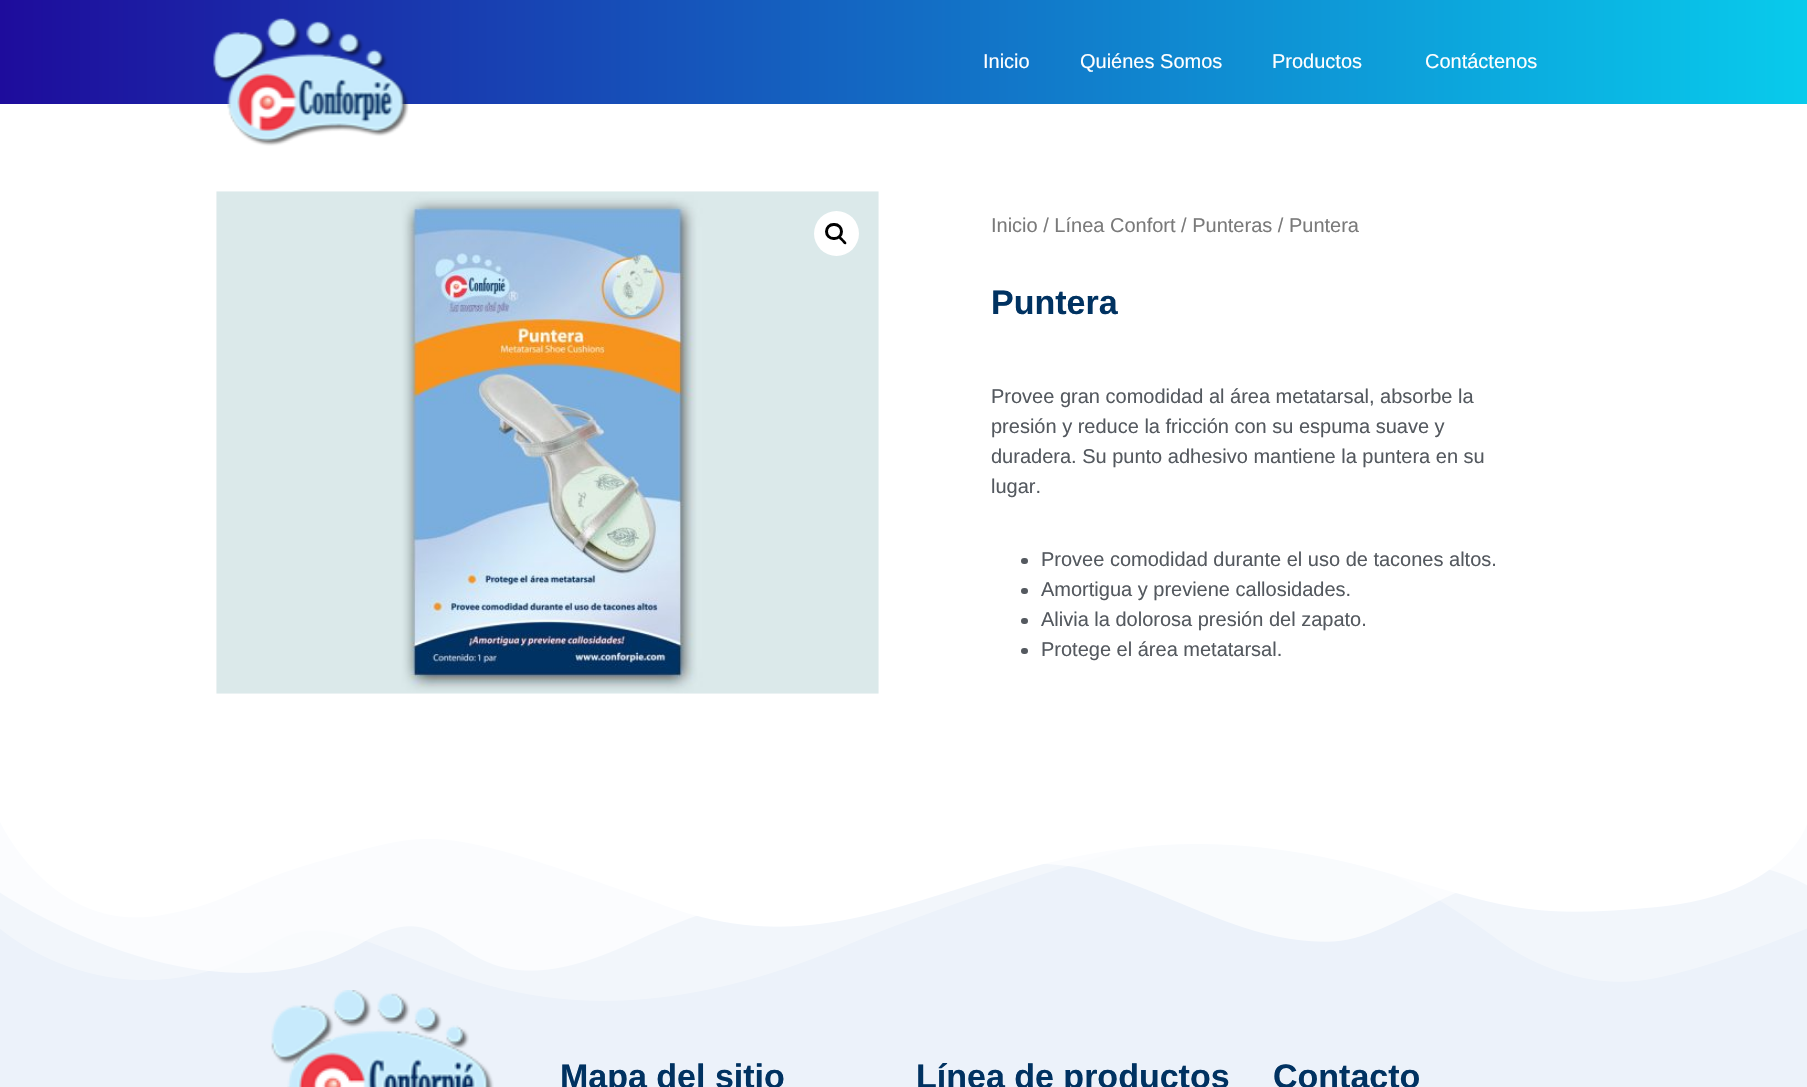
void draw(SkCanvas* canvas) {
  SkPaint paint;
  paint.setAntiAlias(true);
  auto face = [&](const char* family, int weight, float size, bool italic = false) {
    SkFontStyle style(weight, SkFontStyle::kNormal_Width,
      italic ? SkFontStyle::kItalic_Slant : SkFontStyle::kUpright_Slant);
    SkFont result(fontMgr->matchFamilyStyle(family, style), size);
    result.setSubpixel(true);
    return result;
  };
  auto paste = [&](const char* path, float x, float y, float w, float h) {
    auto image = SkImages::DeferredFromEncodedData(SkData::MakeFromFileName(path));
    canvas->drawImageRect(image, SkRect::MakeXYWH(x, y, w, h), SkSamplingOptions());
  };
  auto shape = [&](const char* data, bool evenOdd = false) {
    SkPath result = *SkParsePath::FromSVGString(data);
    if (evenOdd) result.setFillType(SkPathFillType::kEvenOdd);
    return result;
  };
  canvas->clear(0xffffffff);
  {
    const SkColor colors[] = {0xff1e0c9c, 0xff08cbec};
    const float stops[] = {0, 1};
    const SkPoint ends[] = {{0, 52}, {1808, 52}};
    paint.setShader(SkGradientShader::MakeLinear(ends, colors, stops, 2, SkTileMode::kClamp));
    paint.setAlpha(255);
  }
  canvas->drawRect(SkRect::MakeXYWH(0, 0, 1807, 104), paint);
  paste("img/1.png", 213, 18, 196, 128);
  paste("img/2.png", 216, 191, 663, 503);
  paint.setShader(nullptr);
  paint.setColor(0xffffffff);
  canvas->drawCircle(836.5f, 233.5f, 22.5f, paint);
  paint.setStroke(true);
  paint.setStrokeWidth(3);
  paint.setColor(0xff000000);
  canvas->drawRoundRect(SkRect::MakeXYWH(826.5f, 224.5f, 15, 14), 7, 7, paint);
  paint.setStroke(false);
  canvas->drawPath(shape("M839 237C840.5 235.5 842.5 238.5 843.5 239.5C844 240 847.5 242.5 846 244C844.5 245.5 842.5 242 841.5 241C841 240.5 837.5 238 839 237Z"), paint);
  paint.setColor(0xff54595f);
  canvas->drawRoundRect(SkRect::MakeXYWH(1021, 558, 7, 6), 3, 3, paint);
  canvas->drawRoundRect(SkRect::MakeXYWH(1021, 588, 7, 6), 3, 3, paint);
  canvas->drawRoundRect(SkRect::MakeXYWH(1021, 618, 7, 6), 3, 3, paint);
  canvas->drawRoundRect(SkRect::MakeXYWH(1021, 648, 7, 6), 3, 3, paint);
  paint.setColor(0xffecf2fa);
  canvas->drawRect(SkRect::MakeXYWH(0, 821, 1807, 266), paint);
  paste("img/3.png", 0, 821, 1807, 180);
  paste("img/4.png", 271, 990, 223, 97);
  auto f0 = face("Liberation Sans", 400, 20);
  paint.setColor(0xffffffff);
  {
    const struct { const char* s; float x, y; } items[] = {
      {"Inicio", 983, 68},
      {"Quiénes Somos", 1080, 68},
      {"Productos", 1272, 68},
      {"Contáctenos", 1425, 68},
    };
    for (auto [s, x, y] : items) {
      canvas->drawString(s, x, y, f0, paint);
    }
  }
  paint.setColor(0xff7a7a7a);
  canvas->drawString("Inicio / Línea Confort / Punteras / Puntera", 991, 232, f0, paint);
  auto f1 = face("Liberation Sans", 700, 34);
  paint.setColor(0xff003261);
  canvas->drawString("Puntera", 991, 314, f1, paint);
  paint.setColor(0xff54595f);
  {
    const struct { const char* s; float x, y; } items[] = {
      {"Provee gran comodidad al área metatarsal, absorbe la", 991, 403},
      {"presión y reduce la fricción con su espuma suave y", 991, 433},
      {"duradera. Su punto adhesivo mantiene la puntera en su", 991, 463},
      {"lugar.", 991, 493},
      {"Provee comodidad durante el uso de tacones altos.", 1041, 566},
      {"Amortigua y previene callosidades.", 1041, 596},
      {"Alivia la dolorosa presión del zapato.", 1041, 626},
      {"Protege el área metatarsal.", 1041, 656},
    };
    for (auto [s, x, y] : items) {
      canvas->drawString(s, x, y, f0, paint);
    }
  }
  paint.setColor(0xff003261);
  {
    const struct { const char* s; float x, y; } items[] = {
      {"Mapa del sitio", 560, 1088},
      {"Línea de productos", 916, 1088},
      {"Contacto", 1273, 1088},
    };
    for (auto [s, x, y] : items) {
      canvas->drawString(s, x, y, f1, paint);
    }
  }
}
